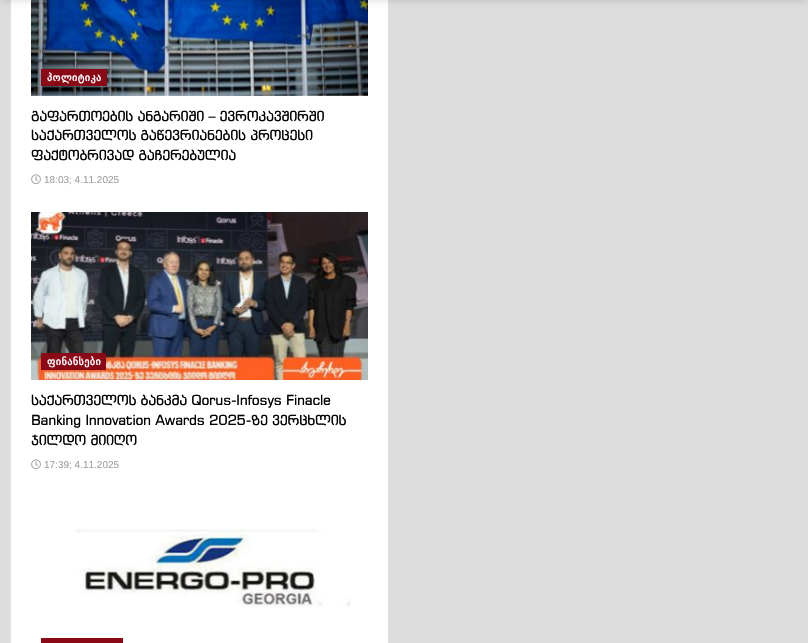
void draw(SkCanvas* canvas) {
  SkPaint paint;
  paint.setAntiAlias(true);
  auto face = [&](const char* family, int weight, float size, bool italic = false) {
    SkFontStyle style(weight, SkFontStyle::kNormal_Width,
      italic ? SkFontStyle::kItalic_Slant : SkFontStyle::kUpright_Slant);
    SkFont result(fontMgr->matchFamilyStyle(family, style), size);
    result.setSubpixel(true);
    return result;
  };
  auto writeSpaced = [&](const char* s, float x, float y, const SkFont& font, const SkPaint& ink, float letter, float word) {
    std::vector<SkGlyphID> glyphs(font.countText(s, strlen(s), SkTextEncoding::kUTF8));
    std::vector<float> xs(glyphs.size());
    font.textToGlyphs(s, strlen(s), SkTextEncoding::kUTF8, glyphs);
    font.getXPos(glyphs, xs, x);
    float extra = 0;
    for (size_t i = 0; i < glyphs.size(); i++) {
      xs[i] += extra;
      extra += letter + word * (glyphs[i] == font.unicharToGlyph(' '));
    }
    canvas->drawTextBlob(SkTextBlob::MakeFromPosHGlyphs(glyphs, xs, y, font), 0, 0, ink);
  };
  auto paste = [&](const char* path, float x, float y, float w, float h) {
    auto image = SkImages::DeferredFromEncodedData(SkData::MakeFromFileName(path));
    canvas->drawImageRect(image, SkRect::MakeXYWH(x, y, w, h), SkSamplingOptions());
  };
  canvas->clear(0xffdddddd);
  paint.setColor(0xffffffff);
  canvas->drawRect(SkRect::MakeXYWH(10.5f, -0.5f, 378, 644), paint);
  paint.setStroke(true);
  paint.setStrokeWidth(1);
  paint.setColor(0xffe0e0e0);
  canvas->drawRect(SkRect::MakeXYWH(10.5f, -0.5f, 378, 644), paint);
  paste("img/1.png", 31, 0, 337, 96);
  paint.setStroke(false);
  paint.setColor(0x1a000000);
  paint.setMaskFilter(SkMaskFilter::MakeBlur(kNormal_SkBlurStyle, 3));
  canvas->drawRect(SkRect::MakeXYWH(0, -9, 808, 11), paint);
  paint.setMaskFilter(nullptr);
  paint.setColor(0xff8a0917);
  canvas->drawRect(SkRect::MakeXYWH(41, 69, 66, 17), paint);
  paste("img/2.png", 31, 174, 10, 11);
  paste("img/3.png", 31, 212, 337, 168);
  canvas->drawRect(SkRect::MakeXYWH(41, 353, 65, 17), paint);
  paste("img/2.png", 31, 459, 10, 11);
  paste("img/4.png", 31, 497, 337, 146);
  canvas->drawRect(SkRect::MakeXYWH(41, 638, 82, 5), paint);
  auto f0 = face("DejaVu Sans", 700, 10);
  paint.setColor(0xffffffff);
  writeSpaced("პოლიტიკა", 47, 81, f0, paint, 0.5f, 0);
  auto f1 = face("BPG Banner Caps", 400, 14);
  paint.setColor(0xff000000);
  {
    const struct { const char* s; float x, y; } items[] = {
      {"გაფართოების ანგარიში – ევროკავშირში", 31, 121},
      {"საქართველოს გაწევრიანების პროცესი", 31, 140},
      {"ფაქტობრივად გაჩერებულია", 31, 160},
    };
    for (auto [s, x, y] : items) {
      writeSpaced(s, x, y, f1, paint, -0.3f, 0);
    }
  }
  auto f2 = face("Liberation Sans", 400, 10);
  paint.setColor(0xffa0a0a0);
  canvas->drawString("18:03; 4.11.2025", 44, 183, f2, paint);
  paint.setColor(0xffffffff);
  writeSpaced("ფინანსები", 47, 365, f0, paint, 0.5f, 0);
  paint.setColor(0xff000000);
  {
    const struct { const char* s; float x, y; } items[] = {
      {"საქართველოს ბანკმა Qorus-Infosys Finacle", 31, 405},
      {"Banking Innovation Awards 2025-ზე ვერცხლის", 31, 425},
      {"ჯილდო მიიღო", 31, 445},
    };
    for (auto [s, x, y] : items) {
      writeSpaced(s, x, y, f1, paint, -0.3f, 0);
    }
  }
  paint.setColor(0xffa0a0a0);
  canvas->drawString("17:39; 4.11.2025", 44, 468, f2, paint);
}
